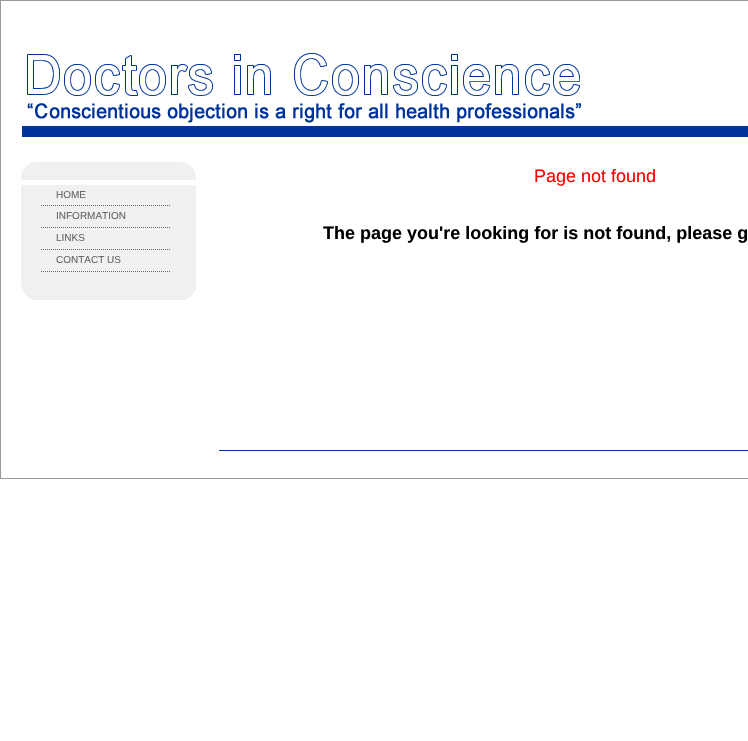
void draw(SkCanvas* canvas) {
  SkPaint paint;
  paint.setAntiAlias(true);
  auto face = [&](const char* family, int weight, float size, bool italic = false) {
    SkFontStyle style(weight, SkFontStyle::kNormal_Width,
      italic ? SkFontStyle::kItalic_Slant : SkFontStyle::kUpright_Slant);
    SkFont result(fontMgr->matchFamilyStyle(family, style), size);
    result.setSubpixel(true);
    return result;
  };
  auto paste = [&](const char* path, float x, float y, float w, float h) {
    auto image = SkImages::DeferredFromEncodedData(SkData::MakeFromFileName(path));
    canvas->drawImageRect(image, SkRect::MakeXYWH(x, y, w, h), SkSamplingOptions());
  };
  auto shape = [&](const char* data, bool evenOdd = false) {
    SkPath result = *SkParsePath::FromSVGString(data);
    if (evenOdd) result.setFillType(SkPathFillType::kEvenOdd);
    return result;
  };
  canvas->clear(0xffffffff);
  {
    const struct { float x, y, w, h; SkColor color; } items[] = {
      {0, 0, 748, 1, 0xff999999},
      {0, 478, 748, 1, 0xff999999},
      {0, 0, 1, 479, 0xff999999},
    };
    for (auto [x, y, w, h, color] : items) {
      paint.setColor(color);
      canvas->drawRect(SkRect::MakeXYWH(x, y, w, h), paint);
    }
  }
  paste("img/1.png", 22, 53, 726, 84);
  paste("img/2.png", 21, 162, 175, 18);
  paint.setColor(0xfff0f0f0);
  canvas->drawRect(SkRect::MakeXYWH(21, 185, 175, 97), paint);
  paint.setStroke(true);
  paint.setStrokeWidth(1);
  paint.setColor(0xff666666);
  paint.setPathEffect(SkDashPathEffect::Make({{1, 1}}, 0));
  canvas->drawPath(shape("M41 205.5H171"), paint);
  paint.setPathEffect(nullptr);
  paint.setPathEffect(SkDashPathEffect::Make({{1, 1}}, 0));
  canvas->drawPath(shape("M41 227.5H171"), paint);
  paint.setPathEffect(nullptr);
  paint.setPathEffect(SkDashPathEffect::Make({{1, 1}}, 0));
  canvas->drawPath(shape("M41 249.5H171"), paint);
  paint.setPathEffect(nullptr);
  paint.setPathEffect(SkDashPathEffect::Make({{1, 1}}, 0));
  canvas->drawPath(shape("M41 271.5H171"), paint);
  paint.setPathEffect(nullptr);
  paste("img/3.png", 21, 282, 175, 18);
  paint.setStroke(false);
  paint.setColor(0xff003399);
  canvas->drawRect(SkRect::MakeXYWH(219, 450, 529, 1), paint);
  auto f0 = face("Liberation Sans", 400, 10);
  paint.setColor(0xff666666);
  {
    const struct { const char* s; float x, y; } items[] = {
      {"HOME", 56, 198},
      {"INFORMATION", 56, 219},
      {"LINKS", 56, 241},
      {"CONTACT US", 56, 263},
    };
    for (auto [s, x, y] : items) {
      canvas->drawString(s, x, y, f0, paint);
    }
  }
  auto f1 = face("Liberation Sans", 400, 18);
  paint.setColor(0xffff0000);
  canvas->drawString("Page not found", 534, 182, f1, paint);
  auto f2 = face("Liberation Sans", 700, 18);
  paint.setColor(0xff000000);
  canvas->drawString("The page you're looking for is not found, please g", 323, 239, f2, paint);
}
